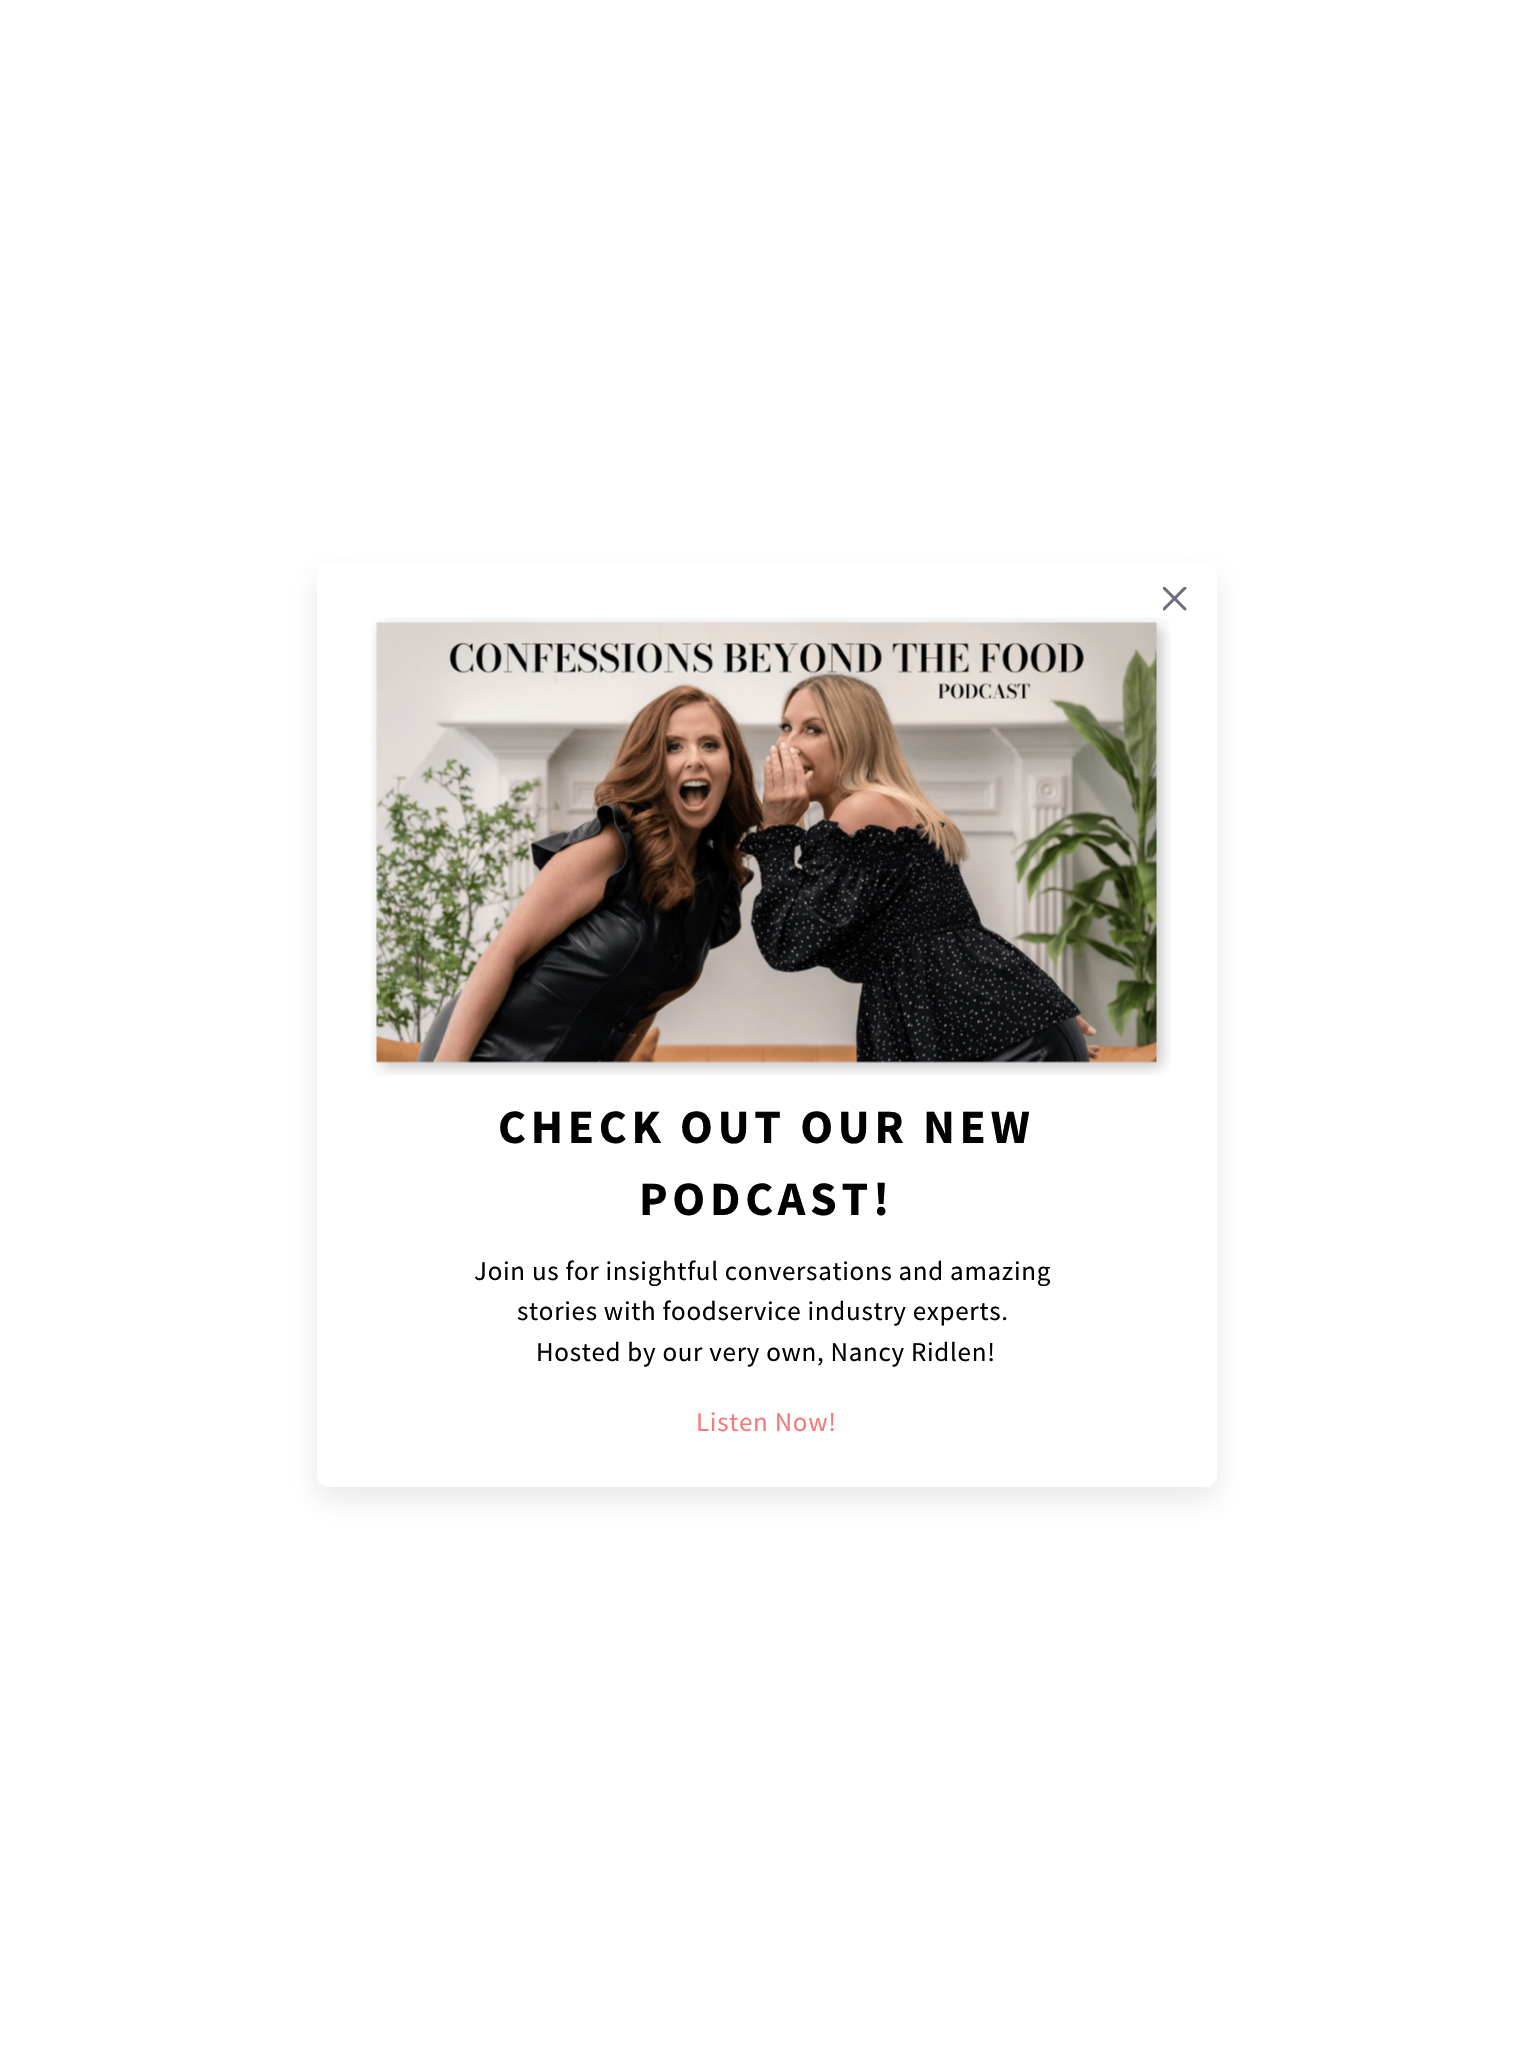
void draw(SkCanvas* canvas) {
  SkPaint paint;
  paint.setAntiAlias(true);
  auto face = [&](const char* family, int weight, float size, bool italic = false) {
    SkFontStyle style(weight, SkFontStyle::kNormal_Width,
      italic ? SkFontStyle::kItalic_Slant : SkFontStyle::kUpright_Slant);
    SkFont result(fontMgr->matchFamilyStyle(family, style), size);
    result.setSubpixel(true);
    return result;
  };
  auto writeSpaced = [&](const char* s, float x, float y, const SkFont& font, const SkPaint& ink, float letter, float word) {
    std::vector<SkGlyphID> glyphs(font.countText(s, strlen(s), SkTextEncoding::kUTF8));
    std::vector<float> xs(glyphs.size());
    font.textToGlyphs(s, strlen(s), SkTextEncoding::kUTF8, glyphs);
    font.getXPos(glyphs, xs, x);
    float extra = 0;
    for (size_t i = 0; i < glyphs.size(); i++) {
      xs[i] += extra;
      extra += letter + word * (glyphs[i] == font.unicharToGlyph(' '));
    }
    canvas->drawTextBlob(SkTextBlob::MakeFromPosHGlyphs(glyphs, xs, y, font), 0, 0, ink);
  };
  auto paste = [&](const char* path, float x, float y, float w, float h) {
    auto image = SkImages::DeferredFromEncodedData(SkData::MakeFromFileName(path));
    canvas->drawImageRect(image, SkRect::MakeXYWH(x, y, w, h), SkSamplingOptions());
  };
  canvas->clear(0xffffffff);
  paint.setColor(0x1a121127);
  paint.setMaskFilter(SkMaskFilter::MakeBlur(kNormal_SkBlurStyle, 15));
  canvas->drawRoundRect(SkRect::MakeXYWH(317, 575, 900, 924), 12, 12, paint);
  paint.setMaskFilter(nullptr);
  paint.setColor(0xffffffff);
  canvas->drawRoundRect(SkRect::MakeXYWH(317, 563, 900, 924), 12, 12, paint);
  paste("img/1.png", 1163, 587, 24, 24);
  paste("img/2.png", 371, 617, 800, 459);
  auto f0 = face("Source Sans Pro", 700, 48);
  paint.setColor(0xff000000);
  writeSpaced("CHECK OUT OUR NEW", 498, 1143, f0, paint, 4.75f, 0);
  writeSpaced("PODCAST!", 639, 1215, f0, paint, 4.75f, 0);
  auto f1 = face("Source Sans Pro", 400, 27);
  {
    const struct { const char* s; float x, y; } items[] = {
      {"Join us for insightful conversations and amazing", 474, 1280},
      {"stories with foodservice industry experts.", 517, 1320},
      {"Hosted by our very own, Nancy Ridlen!", 536, 1361},
    };
    for (auto [s, x, y] : items) {
      writeSpaced(s, x, y, f1, paint, 0.7f, 0);
    }
  }
  paint.setColor(0xfff97979);
  writeSpaced("Listen Now!", 696, 1431, f1, paint, 0.7f, 0);
}
